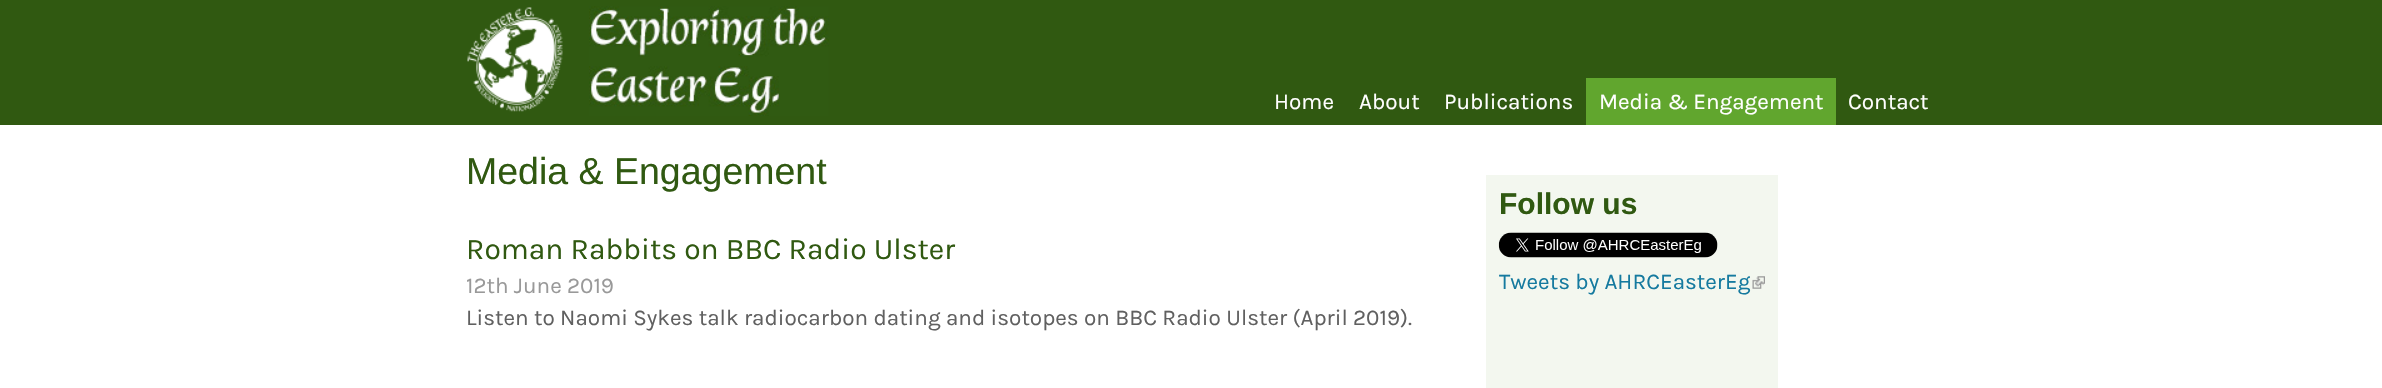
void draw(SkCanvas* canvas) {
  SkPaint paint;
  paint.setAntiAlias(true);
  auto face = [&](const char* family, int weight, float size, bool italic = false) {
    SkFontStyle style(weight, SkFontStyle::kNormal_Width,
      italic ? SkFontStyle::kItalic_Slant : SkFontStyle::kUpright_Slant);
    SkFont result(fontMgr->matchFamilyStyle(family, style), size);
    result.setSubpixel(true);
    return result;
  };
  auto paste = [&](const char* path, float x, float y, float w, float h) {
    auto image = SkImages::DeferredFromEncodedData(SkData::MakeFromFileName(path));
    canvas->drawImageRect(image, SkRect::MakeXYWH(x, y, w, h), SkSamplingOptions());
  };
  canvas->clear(0xffffffff);
  paint.setColor(0xff305911);
  canvas->drawRect(SkRect::MakeXYWH(0, 0, 2382, 125), paint);
  paste("img/1.png", 467, 7, 96, 105);
  paste("img/2.png", 589, 6, 240, 110);
  paint.setColor(0xff61a62e);
  canvas->drawRect(SkRect::MakeXYWH(1586, 78, 250, 47), paint);
  paint.setColor(0xfff3f7ef);
  canvas->drawRect(SkRect::MakeXYWH(1486, 175, 292, 213), paint);
  paste("img/3.png", 1498, 232, 220, 26);
  paste("img/4.png", 1752, 276, 13, 13);
  auto f0 = face("Karla", 400, 22.5f);
  paint.setColor(0xffffffff);
  {
    const struct { const char* s; float x, y; } items[] = {
      {"Home", 1274, 109},
      {"About", 1359, 109},
      {"Publications", 1444, 109},
      {"Media & Engagement", 1599, 109},
      {"Contact", 1848, 109},
    };
    for (auto [s, x, y] : items) {
      canvas->drawString(s, x, y, f0, paint);
    }
  }
  auto f1 = face("Liberation Sans", 400, 37.5f);
  paint.setColor(0xff305911);
  canvas->drawString("Media & Engagement", 466, 184, f1, paint);
  auto f2 = face("Karla", 400, 30);
  canvas->drawString("Roman Rabbits on BBC Radio Ulster", 466, 259, f2, paint);
  paint.setColor(0xff999999);
  canvas->drawString("12th June 2019", 466, 293, f0, paint);
  paint.setColor(0xff606060);
  canvas->drawString("Listen to Naomi Sykes talk radiocarbon dating and isotopes on BBC Radio Ulster (April 2019).", 466, 325, f0, paint);
  auto f3 = face("Liberation Sans", 700, 30);
  paint.setColor(0xff305911);
  canvas->drawString("Follow us", 1499, 214, f3, paint);
  paint.setColor(0xff157a9f);
  canvas->drawString("Tweets by AHRCEasterEg", 1499, 289, f0, paint);
}
